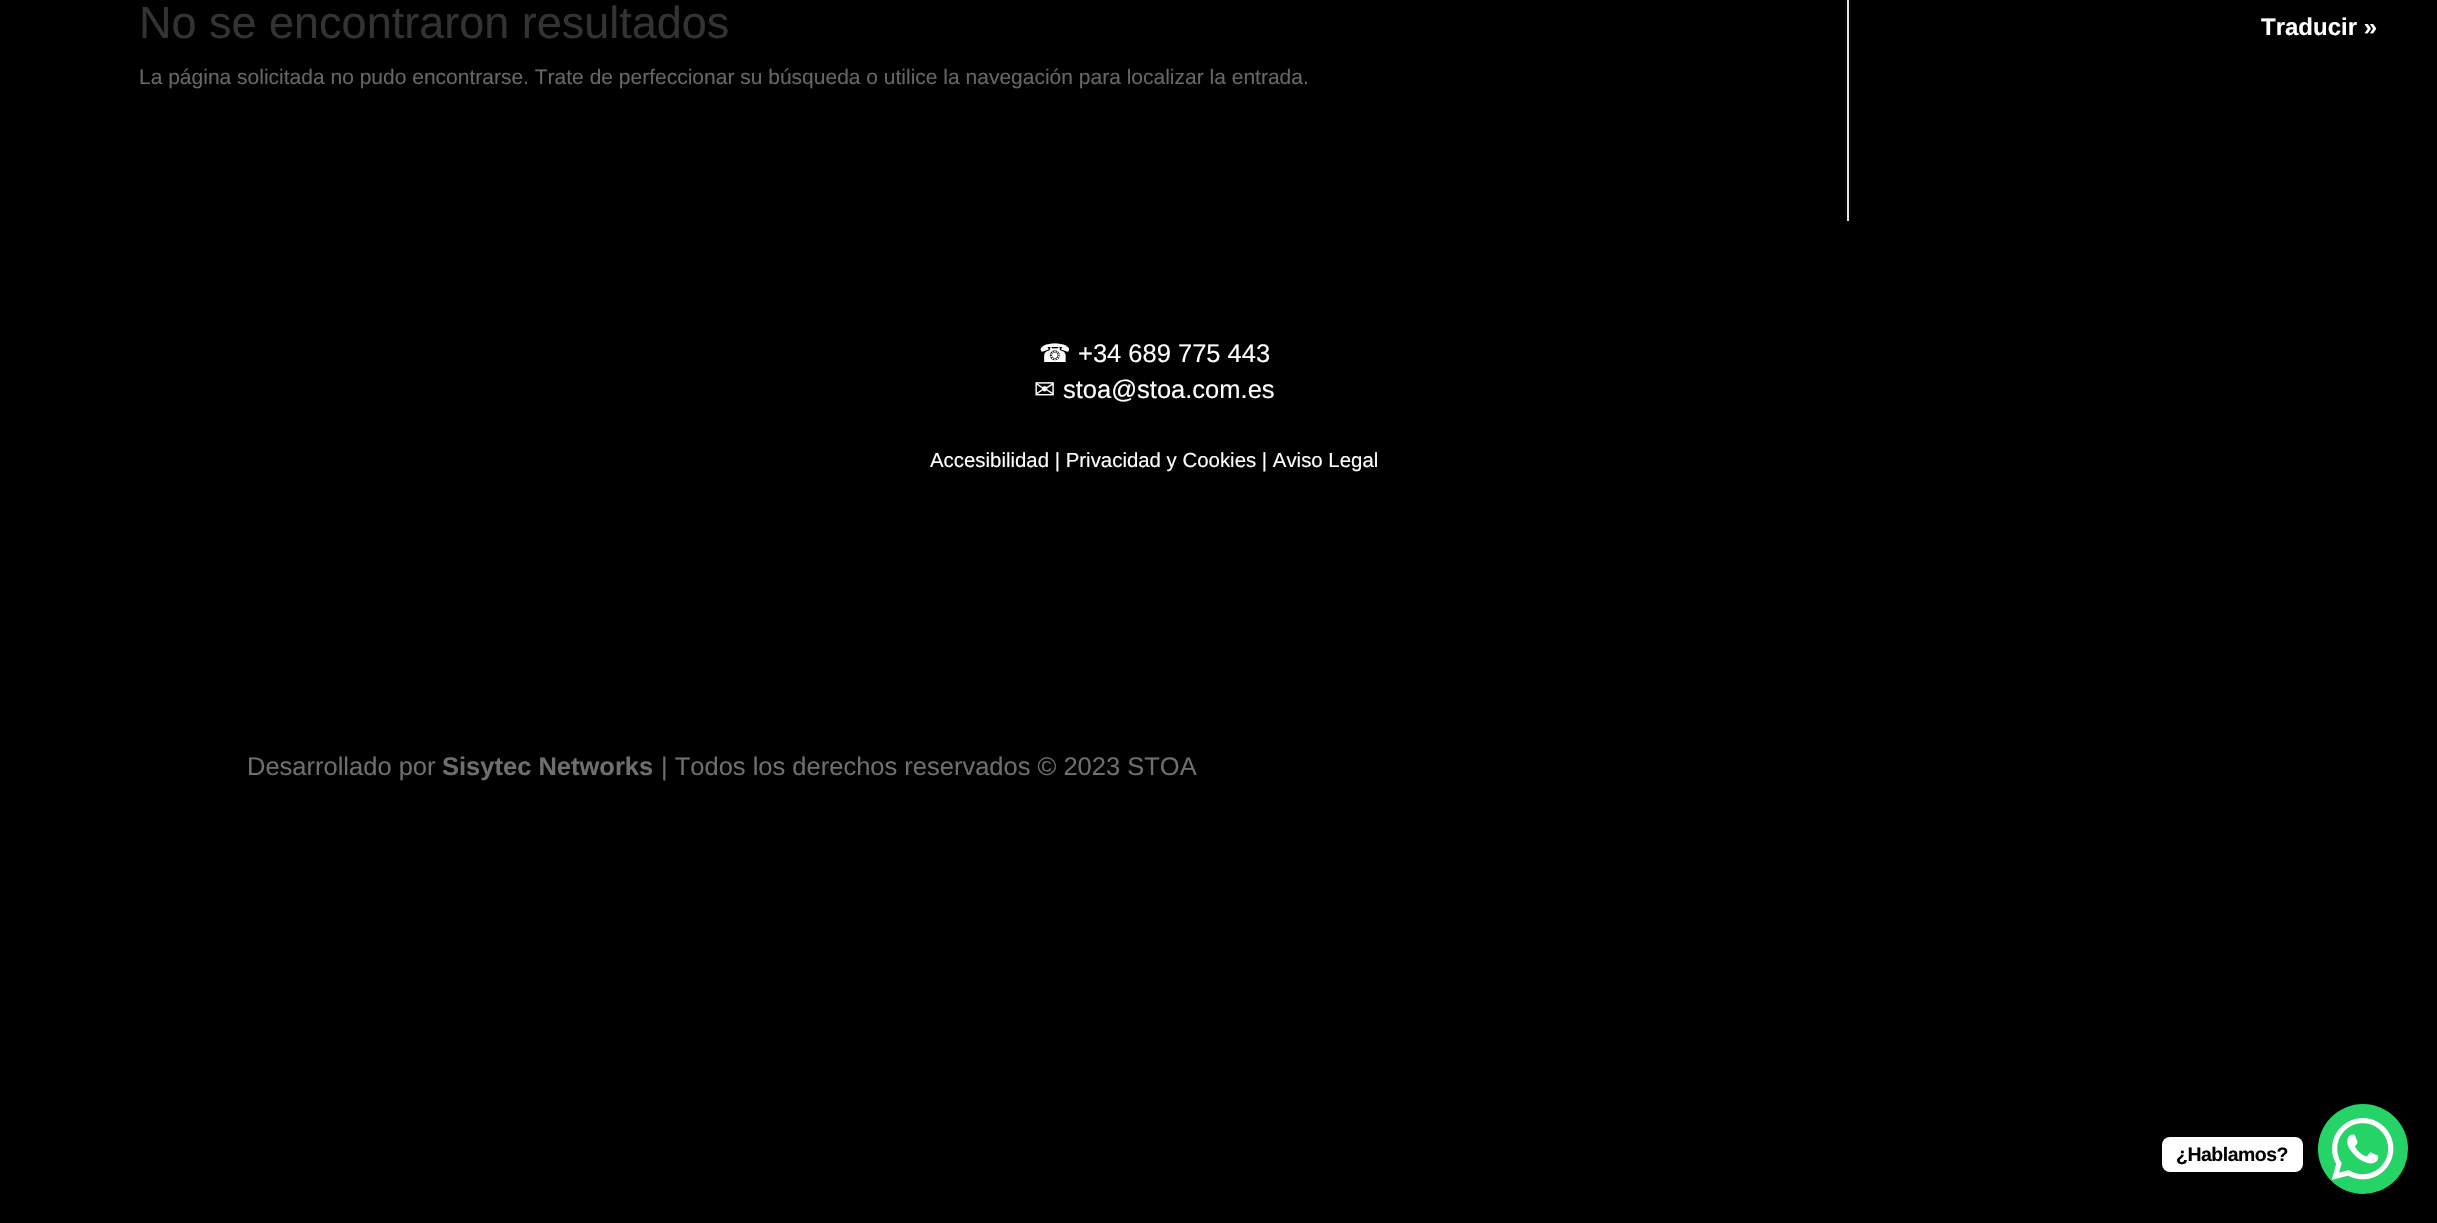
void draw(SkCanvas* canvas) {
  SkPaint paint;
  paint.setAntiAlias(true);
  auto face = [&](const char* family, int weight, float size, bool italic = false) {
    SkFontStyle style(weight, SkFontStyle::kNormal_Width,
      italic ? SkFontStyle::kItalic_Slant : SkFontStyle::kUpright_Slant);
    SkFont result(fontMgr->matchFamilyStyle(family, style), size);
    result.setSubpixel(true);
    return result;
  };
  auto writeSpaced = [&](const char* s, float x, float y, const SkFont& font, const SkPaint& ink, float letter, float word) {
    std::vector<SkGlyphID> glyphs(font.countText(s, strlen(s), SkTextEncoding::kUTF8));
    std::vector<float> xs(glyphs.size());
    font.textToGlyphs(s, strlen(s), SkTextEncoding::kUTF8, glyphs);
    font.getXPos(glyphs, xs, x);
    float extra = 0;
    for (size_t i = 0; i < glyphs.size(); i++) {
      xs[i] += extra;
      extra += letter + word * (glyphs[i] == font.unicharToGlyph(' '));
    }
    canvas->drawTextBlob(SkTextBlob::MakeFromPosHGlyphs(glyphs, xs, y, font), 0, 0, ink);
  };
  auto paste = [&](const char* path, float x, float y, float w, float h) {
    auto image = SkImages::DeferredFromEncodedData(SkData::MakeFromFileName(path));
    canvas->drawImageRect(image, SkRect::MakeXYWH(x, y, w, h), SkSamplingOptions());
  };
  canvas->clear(0xff000000);
  paint.setColor(0xffe2e2e2);
  canvas->drawRect(SkRect::MakeXYWH(1847, 0, 2, 221), paint);
  paint.setColor(0xffffffff);
  canvas->drawRoundRect(SkRect::MakeXYWH(2162, 1137, 141, 35), 8, 8, paint);
  paint.setColor(0xff25d366);
  canvas->drawCircle(2363, 1149, 45, paint);
  paste("img/1.png", 2331, 1118, 63, 62);
  auto f0 = face("Liberation Sans", 400, 45);
  paint.setColor(0xff333333);
  canvas->drawString("No se encontraron resultados", 139, 38, f0, paint);
  auto f1 = face("Liberation Sans", 400, 21);
  paint.setColor(0xff666666);
  canvas->drawString("La página solicitada no pudo encontrarse. Trate de perfeccionar su búsqueda o utilice la navegación para localizar la entrada.", 139, 84, f1, paint);
  auto f2 = face("DejaVu Sans", 400, 25.5f);
  paint.setColor(0xffffffff);
  canvas->drawString("☎", 1039, 362, f2, paint);
  auto f3 = face("Liberation Sans", 400, 25.5f);
  canvas->drawString("+34 689 775 443", 1078, 362, f3, paint);
  canvas->drawString("✉", 1034, 398, f2, paint);
  canvas->drawString("stoa@stoa.com.es", 1063, 398, f3, paint);
  auto f4 = face("Liberation Sans", 400, 20.4f);
  canvas->drawString("Accesibilidad | Privacidad y Cookies | Aviso Legal", 930, 467, f4, paint);
  paint.setColor(0xff6e6e6e);
  canvas->drawString("Desarrollado por", 247, 775, f3, paint);
  auto f5 = face("Liberation Sans", 700, 25.5f);
  canvas->drawString("Sisytec Networks", 442, 775, f5, paint);
  canvas->drawString("| Todos los derechos reservados © 2023 STOA", 661, 775, f3, paint);
  auto f6 = face("Liberation Sans", 700, 24);
  paint.setColor(0xffffffff);
  canvas->drawString("Traducir »", 2261, 35, f6, paint);
  auto f7 = face("Liberation Sans", 700, 19.5f);
  paint.setColor(0xff000000);
  writeSpaced("¿Hablamos?", 2176, 1161, f7, paint, -0.5f, 0);
}
